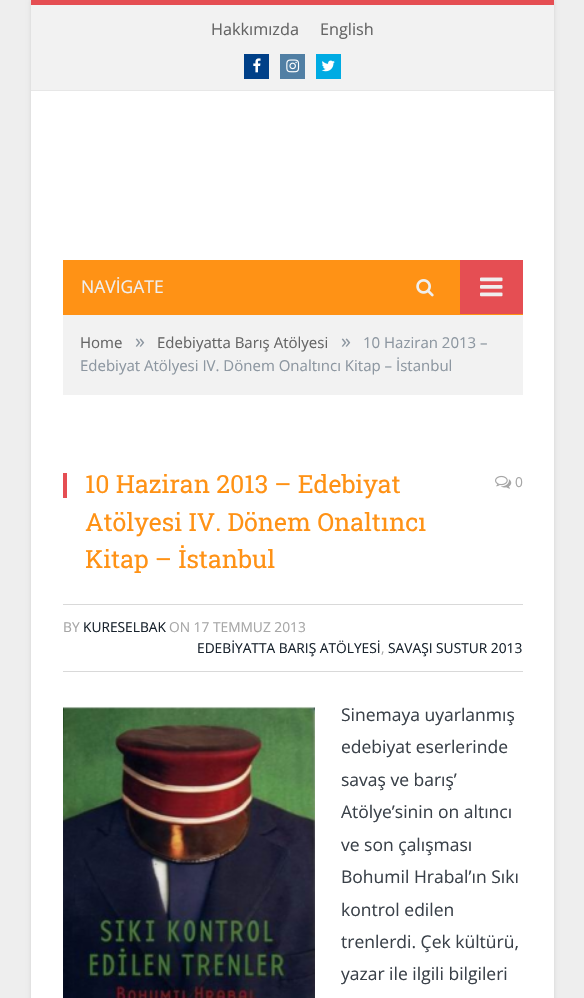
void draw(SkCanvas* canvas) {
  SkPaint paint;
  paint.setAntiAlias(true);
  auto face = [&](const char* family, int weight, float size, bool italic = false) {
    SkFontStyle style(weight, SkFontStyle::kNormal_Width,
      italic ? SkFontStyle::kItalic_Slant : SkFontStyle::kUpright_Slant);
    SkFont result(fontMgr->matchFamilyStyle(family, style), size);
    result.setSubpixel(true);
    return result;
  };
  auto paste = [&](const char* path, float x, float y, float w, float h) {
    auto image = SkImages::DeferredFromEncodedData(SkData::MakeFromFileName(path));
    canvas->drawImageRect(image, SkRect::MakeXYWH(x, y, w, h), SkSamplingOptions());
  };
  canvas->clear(0xffeeeeee);
  paint.setColor(0x1f000000);
  paint.setMaskFilter(SkMaskFilter::MakeBlur(kNormal_SkBlurStyle, 2));
  canvas->drawRect(SkRect::MakeXYWH(31, 0, 523, 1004), paint);
  paint.setMaskFilter(nullptr);
  {
    const struct { float x, y, w, h; SkColor color; } items[] = {
      {31, 91, 523, 907, 0xffffffff},
      {31, 5, 523, 85, 0xfff2f2f2},
      {31, 0, 523, 5, 0xffe54e53},
      {31, 90, 523, 1, 0xffe7e7e7},
      {244, 54, 25, 25, 0xff004088},
    };
    for (auto [x, y, w, h, color] : items) {
      paint.setColor(color);
      canvas->drawRect(SkRect::MakeXYWH(x, y, w, h), paint);
    }
  }
  paste("img/1.png", 253, 58, 8, 15);
  paint.setColor(0xff517fa4);
  canvas->drawRect(SkRect::MakeXYWH(280, 54, 25, 25), paint);
  paste("img/2.png", 286, 59, 14, 14);
  paint.setColor(0xff00abe3);
  canvas->drawRect(SkRect::MakeXYWH(316, 54, 25, 25), paint);
  paste("img/3.png", 321, 60, 14, 12);
  paint.setColor(0xffff9215);
  canvas->drawRect(SkRect::MakeXYWH(63, 260, 460, 55), paint);
  paste("img/4.png", 416, 279, 18, 18);
  paint.setColor(0xffe54e53);
  canvas->drawRect(SkRect::MakeXYWH(460, 260, 63, 54), paint);
  paste("img/5.png", 480, 277, 23, 20);
  paint.setColor(0xfff2f2f2);
  canvas->drawRect(SkRect::MakeXYWH(63, 315, 460, 80), paint);
  paint.setColor(0xffe54e53);
  canvas->drawRect(SkRect::MakeXYWH(63, 473, 4, 25), paint);
  paste("img/6.png", 495, 475, 17, 14);
  paint.setColor(0xffd9d9d9);
  canvas->drawRect(SkRect::MakeXYWH(63, 604, 460, 1), paint);
  canvas->drawRect(SkRect::MakeXYWH(63, 671, 460, 1), paint);
  paste("img/7.png", 63, 706, 252, 292);
  auto f0 = face("Open Sans", 400, 16.25f);
  paint.setColor(0xff656565);
  canvas->drawString("Hakkımızda", 211, 35, f0, paint);
  canvas->drawString("English", 320, 35, f0, paint);
  auto f1 = face("Open Sans", 400, 17.5f);
  paint.setColor(0xffefefef);
  canvas->drawString("NAVİGATE", 81, 293, f1, paint);
  auto f2 = face("Open Sans", 400, 15);
  paint.setColor(0xff656565);
  canvas->drawString("Home", 80, 348, f2, paint);
  auto f3 = face("Open Sans", 400, 20);
  paint.setColor(0xff8d97a1);
  canvas->drawString("»", 135, 348, f3, paint);
  paint.setColor(0xff656565);
  canvas->drawString("Edebiyatta Barış Atölyesi", 157, 348, f2, paint);
  paint.setColor(0xff8d97a1);
  canvas->drawString("»", 341, 348, f3, paint);
  canvas->drawString("10 Haziran 2013 –", 363, 348, f2, paint);
  canvas->drawString("Edebiyat Atölyesi IV. Dönem Onaltıncı Kitap – İstanbul", 80, 371, f2, paint);
  auto f4 = face("Roboto Slab", 400, 25);
  paint.setColor(0xffff9215);
  {
    const struct { const char* s; float x, y; } items[] = {
      {"10 Haziran 2013 – Edebiyat", 85, 493},
      {"Atölyesi IV. Dönem Onaltıncı", 85, 531},
      {"Kitap – İstanbul", 85, 568},
    };
    for (auto [s, x, y] : items) {
      canvas->drawString(s, x, y, f4, paint);
    }
  }
  auto f5 = face("Open Sans", 400, 13.75f);
  paint.setColor(0xffa6a6a6);
  canvas->drawString("0", 515, 487, f5, paint);
  canvas->drawString("BY", 63, 632, f5, paint);
  paint.setColor(0xff19232d);
  canvas->drawString("KURESELBAK", 83, 632, f5, paint);
  paint.setColor(0xffa6a6a6);
  canvas->drawString("ON 17 TEMMUZ 2013", 169, 632, f5, paint);
  paint.setColor(0xff19232d);
  canvas->drawString("EDEBİYATTA BARIŞ ATÖLYESİ", 197, 653, f5, paint);
  paint.setColor(0xffa6a6a6);
  canvas->drawString(",", 381, 653, f5, paint);
  paint.setColor(0xff19232d);
  canvas->drawString("SAVAŞI SUSTUR 2013", 388, 653, f5, paint);
  paint.setColor(0xff3a4149);
  {
    const struct { const char* s; float x, y; } items[] = {
      {"Sinemaya uyarlanmış", 341, 721},
      {"edebiyat eserlerinde", 341, 753},
      {"savaş ve barış’", 341, 786},
      {"Atölye’sinin on altıncı", 341, 818},
      {"ve son çalışması", 341, 851},
      {"Bohumil Hrabal’ın Sıkı", 341, 883},
      {"kontrol edilen", 341, 916},
      {"trenlerdi. Çek kültürü,", 341, 948},
      {"yazar ile ilgili bilgileri", 341, 980},
    };
    for (auto [s, x, y] : items) {
      canvas->drawString(s, x, y, f1, paint);
    }
  }
}
